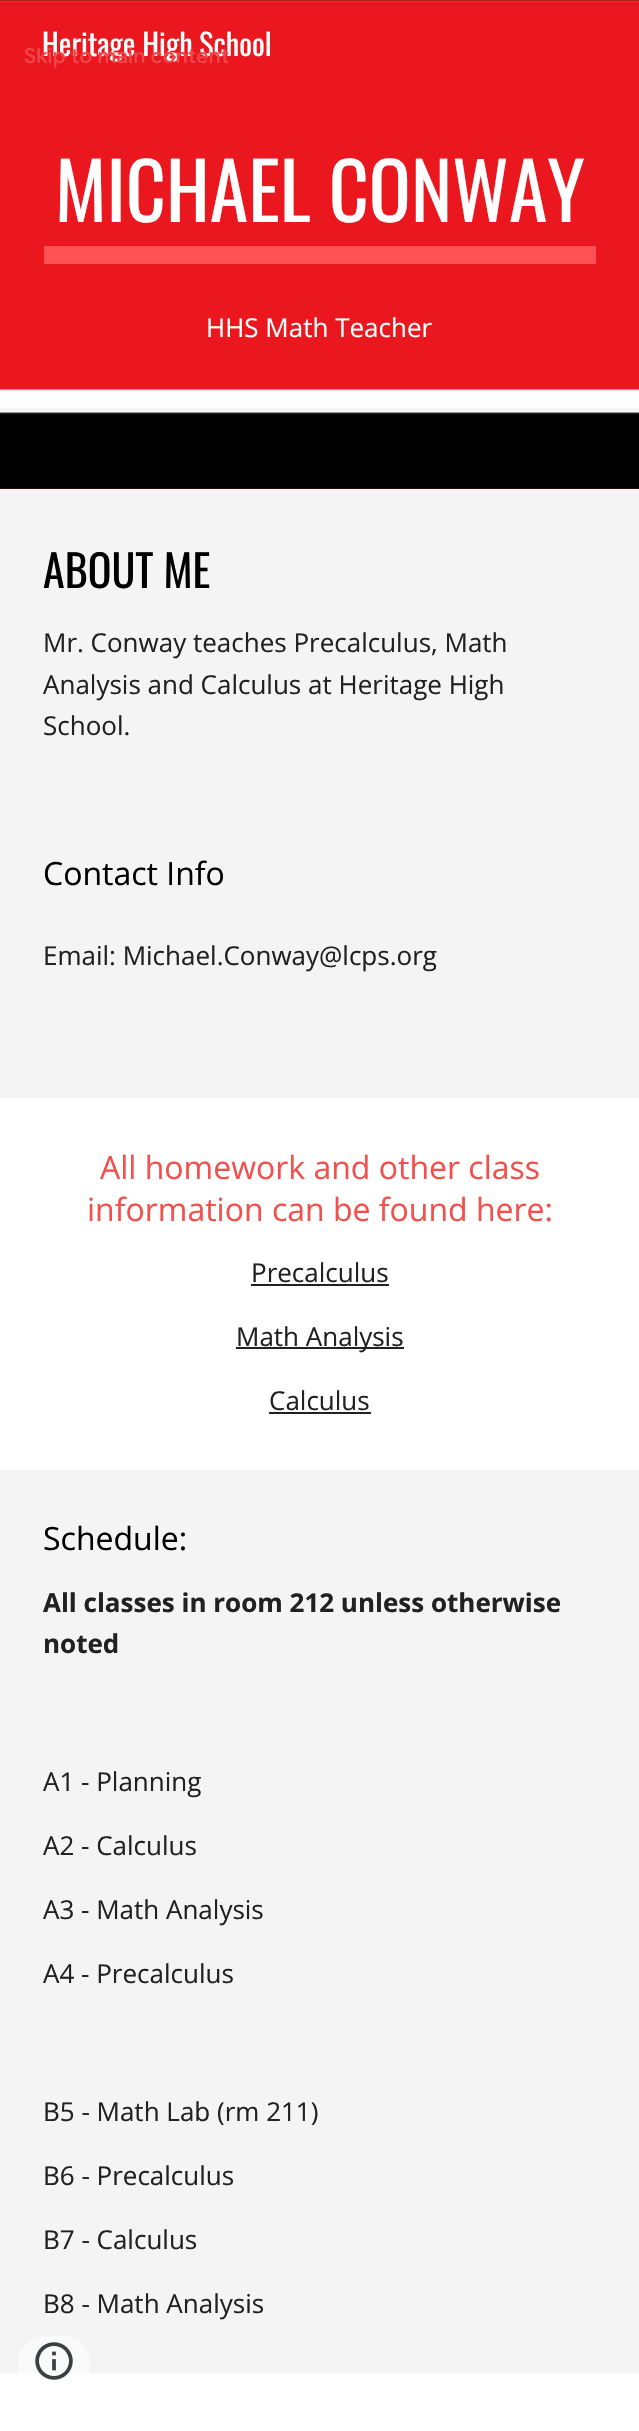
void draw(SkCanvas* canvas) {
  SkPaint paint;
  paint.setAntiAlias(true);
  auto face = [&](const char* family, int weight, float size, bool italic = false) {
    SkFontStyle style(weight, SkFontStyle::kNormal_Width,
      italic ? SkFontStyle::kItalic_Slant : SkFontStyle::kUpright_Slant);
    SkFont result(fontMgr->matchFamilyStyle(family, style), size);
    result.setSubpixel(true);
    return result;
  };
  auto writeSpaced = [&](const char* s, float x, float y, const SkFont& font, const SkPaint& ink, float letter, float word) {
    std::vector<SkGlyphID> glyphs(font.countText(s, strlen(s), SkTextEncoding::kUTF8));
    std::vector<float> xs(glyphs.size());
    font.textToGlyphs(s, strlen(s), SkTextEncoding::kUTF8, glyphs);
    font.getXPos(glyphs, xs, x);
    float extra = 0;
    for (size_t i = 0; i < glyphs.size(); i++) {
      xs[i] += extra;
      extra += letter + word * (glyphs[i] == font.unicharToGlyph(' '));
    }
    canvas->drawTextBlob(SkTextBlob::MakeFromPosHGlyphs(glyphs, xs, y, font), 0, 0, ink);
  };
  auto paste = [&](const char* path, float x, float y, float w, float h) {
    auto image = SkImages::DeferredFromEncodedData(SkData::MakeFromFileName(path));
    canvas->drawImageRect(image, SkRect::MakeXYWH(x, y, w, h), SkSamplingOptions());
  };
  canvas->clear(0xffffffff);
  paste("img/1.png", 0, 0, 639, 489);
  {
    const struct { float x, y, w, h; SkColor color; } items[] = {
      {44, 246, 552, 18, 0xffff5252},
      {0, 489, 639, 609, 0xfff4f4f4},
      {251, 1284, 138, 2, 0xff212121},
      {236, 1347, 168, 2, 0xff212121},
      {269, 1412, 102, 2, 0xff212121},
      {0, 1470, 639, 903, 0xfff4f4f4},
    };
    for (auto [x, y, w, h, color] : items) {
      paint.setColor(color);
      canvas->drawRect(SkRect::MakeXYWH(x, y, w, h), paint);
    }
  }
  paint.setColor(0x80ffffff);
  canvas->drawRoundRect(SkRect::MakeXYWH(18, 2336, 72, 72), 26, 26, paint);
  paste("img/2.png", 35, 2342, 38, 38);
  auto f0 = face("Oswald", 400, 30);
  paint.setColor(0xffffffff);
  canvas->drawString("Heritage High School", 42, 56, f0, paint);
  auto f1 = face("Oswald", 400, 78);
  canvas->drawString("MICHAEL CONWAY", 55, 222, f1, paint);
  auto f2 = face("Open Sans", 400, 26);
  canvas->drawString("HHS Math Teacher", 206, 337, f2, paint);
  auto f3 = face("Oswald", 400, 44);
  paint.setColor(0xff000000);
  canvas->drawString("ABOUT ME", 43, 588, f3, paint);
  paint.setColor(0xff212121);
  {
    const struct { const char* s; float x, y; } items[] = {
      {"Mr. Conway teaches Precalculus, Math", 43, 652},
      {"Analysis and Calculus at Heritage High", 43, 694},
      {"School.", 43, 735},
    };
    for (auto [s, x, y] : items) {
      canvas->drawString(s, x, y, f2, paint);
    }
  }
  auto f4 = face("Open Sans", 400, 32);
  paint.setColor(0xff000000);
  canvas->drawString("Contact Info", 43, 885, f4, paint);
  paint.setColor(0xff212121);
  canvas->drawString("Email: Michael.Conway@lcps.org", 43, 965, f2, paint);
  paint.setColor(0xfff34f4c);
  canvas->drawString("All homework and other class", 100, 1179, f4, paint);
  canvas->drawString("information can be found here:", 87, 1221, f4, paint);
  paint.setColor(0xff212121);
  {
    const struct { const char* s; float x, y; } items[] = {
      {"Precalculus", 251, 1282},
      {"Math Analysis", 236, 1346},
      {"Calculus", 269, 1410},
    };
    for (auto [s, x, y] : items) {
      canvas->drawString(s, x, y, f2, paint);
    }
  }
  paint.setColor(0xff000000);
  canvas->drawString("Schedule:", 43, 1550, f4, paint);
  auto f5 = face("Open Sans", 700, 26);
  paint.setColor(0xff212121);
  canvas->drawString("All classes in room 212 unless otherwise", 43, 1612, f5, paint);
  canvas->drawString("noted", 43, 1653, f5, paint);
  {
    const struct { const char* s; float x, y; } items[] = {
      {"A1 - Planning", 43, 1791},
      {"A2 - Calculus", 43, 1855},
      {"A3 - Math Analysis", 43, 1919},
      {"A4 - Precalculus", 43, 1983},
      {"B5 - Math Lab (rm 211)", 43, 2121},
      {"B6 - Precalculus", 43, 2185},
      {"B7 - Calculus", 43, 2249},
      {"B8 - Math Analysis", 43, 2313},
    };
    for (auto [s, x, y] : items) {
      canvas->drawString(s, x, y, f2, paint);
    }
  }
  auto f6 = face("Google Sans", 500, 21);
  paint.setColor(0xffee454b);
  writeSpaced("Skip to main content", 24, 63, f6, paint, 0.25f, 0);
}
